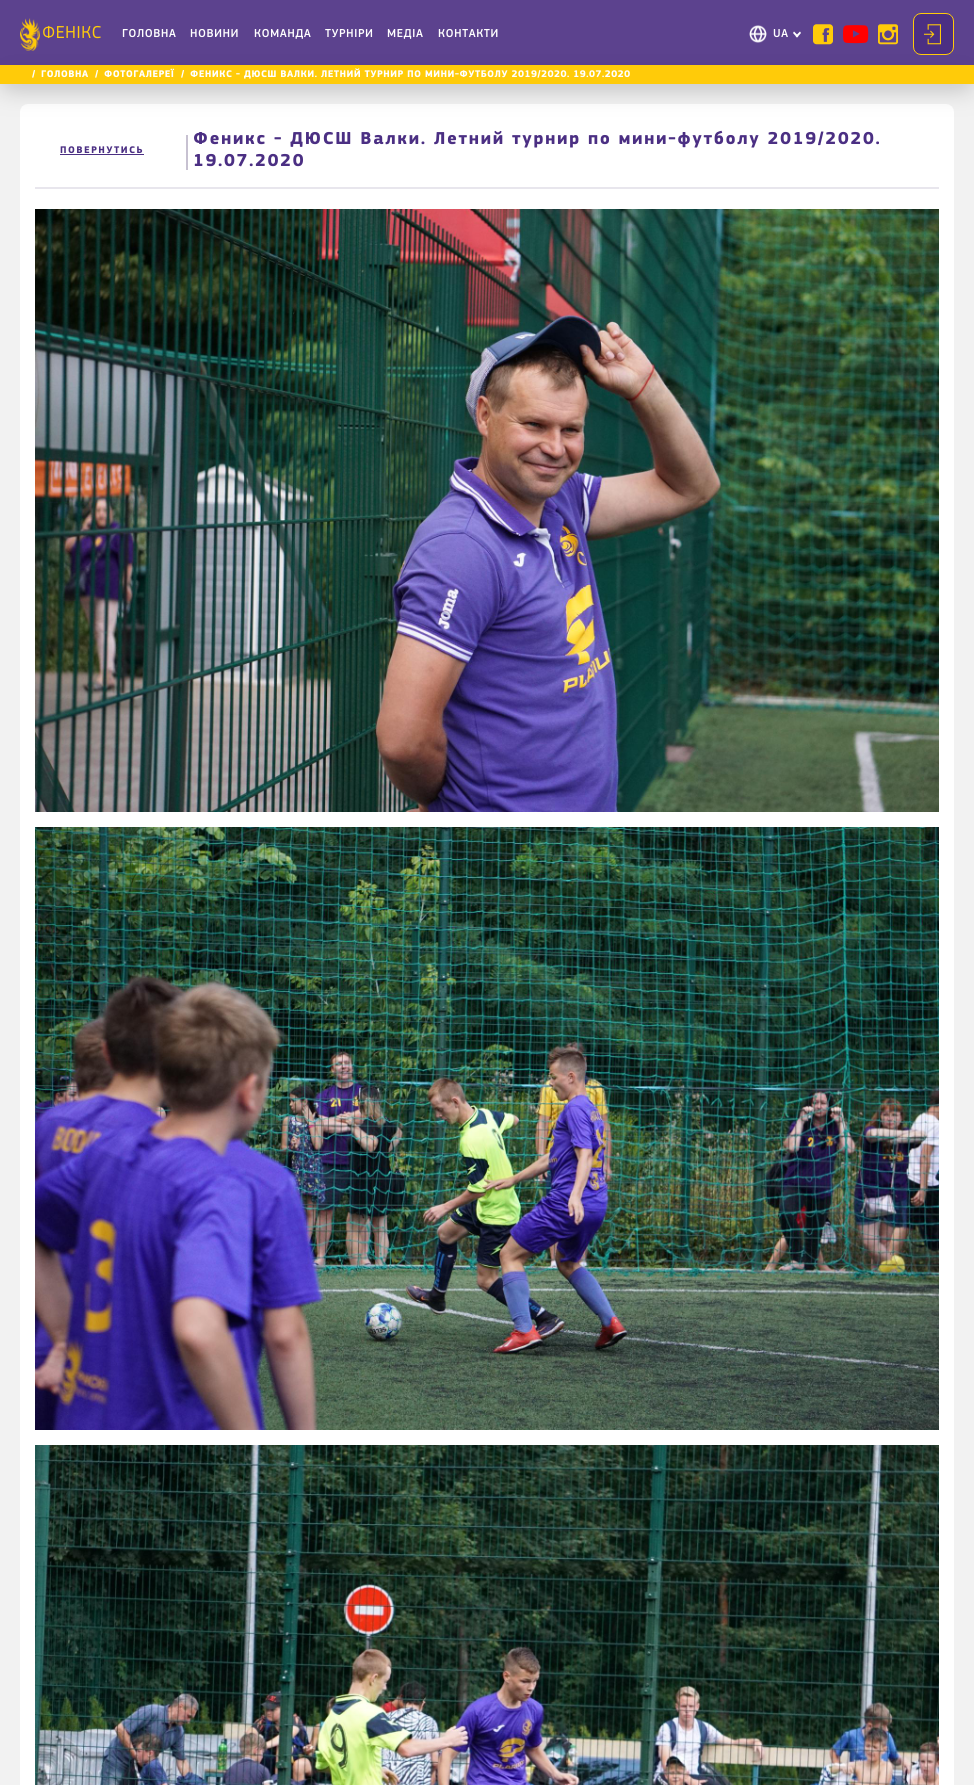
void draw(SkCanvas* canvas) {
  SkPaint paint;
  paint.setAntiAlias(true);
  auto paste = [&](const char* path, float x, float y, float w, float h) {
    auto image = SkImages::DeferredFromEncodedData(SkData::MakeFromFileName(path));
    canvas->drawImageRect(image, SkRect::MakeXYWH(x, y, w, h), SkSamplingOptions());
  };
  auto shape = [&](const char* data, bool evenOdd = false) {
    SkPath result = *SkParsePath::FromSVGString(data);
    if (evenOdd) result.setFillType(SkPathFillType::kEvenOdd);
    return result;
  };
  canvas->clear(0xfff2f2f2);
  {
    const SkColor colors[] = {0xffffffff, 0xffffffff, 0xfff5f5f5};
    const float stops[] = {0, 0.48f, 1};
    const SkPoint ends[] = {{487, 104}, {487, 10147}};
    paint.setShader(SkGradientShader::MakeLinear(ends, colors, stops, 3, SkTileMode::kClamp));
    paint.setAlpha(255);
  }
  canvas->drawRoundRect(SkRect::MakeXYWH(20, 104, 934, 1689), 8, 8, paint);
  paint.setShader(nullptr);
  paint.setColor(0x40000000);
  paint.setMaskFilter(SkMaskFilter::MakeBlur(kNormal_SkBlurStyle, 12.5f));
  canvas->drawRect(SkRect::MakeXYWH(0, 69, 974, 19), paint);
  paint.setMaskFilter(nullptr);
  paint.setColor(0xe64b2f83);
  canvas->drawRect(SkRect::MakeXYWH(0, 0, 974, 65), paint);
  paste("img/1.png", 20, 18, 20, 33);
  paste("img/2.png", 43, 25, 58, 14);
  paste("img/3.png", 122, 28, 54, 10);
  paste("img/4.png", 190, 29, 48, 9);
  paste("img/5.png", 254, 28, 57, 11);
  paste("img/6.png", 325, 29, 48, 9);
  paste("img/7.png", 387, 29, 36, 10);
  paste("img/8.png", 438, 28, 60, 10);
  paste("img/9.png", 749, 25, 18, 18);
  paste("img/10.png", 773, 29, 15, 9);
  paint.setColor(0xffffffff);
  canvas->drawPath(shape("M800 31.5L801 33L797 37.5L795.5 36Z"), paint);
  canvas->drawPath(shape("M794 31.5L798.5 36L797 37.5L793 33Z"), paint);
  paste("img/11.png", 813, 24, 20, 21);
  paste("img/12.png", 843, 25, 26, 19);
  paste("img/13.png", 878, 24, 20, 21);
  paint.setColor(0xff4b2f83);
  canvas->drawRoundRect(SkRect::MakeXYWH(913.5f, 13.5f, 40, 41), 7.5f, 7.5f, paint);
  paint.setStroke(true);
  paint.setStrokeWidth(1);
  paint.setColor(0xffffcb09);
  canvas->drawRoundRect(SkRect::MakeXYWH(913.5f, 13.5f, 40, 41), 7.5f, 7.5f, paint);
  paste("img/14.png", 924, 24, 17, 21);
  paint.setStroke(false);
  canvas->drawRect(SkRect::MakeXYWH(0, 65, 974, 19), paint);
  paste("img/15.png", 32, 70, 4, 8);
  paste("img/16.png", 41, 70, 47, 8);
  paste("img/15.png", 95, 70, 4, 8);
  paste("img/17.png", 104, 68, 71, 10);
  paste("img/15.png", 181, 70, 4, 8);
  paste("img/18.png", 190, 68, 440, 11);
  paint.setColor(0xffe8e6ed);
  canvas->drawRect(SkRect::MakeXYWH(35, 187, 904, 2), paint);
  paste("img/19.png", 60, 146, 83, 8);
  paint.setColor(0xffc7c1d1);
  canvas->drawRect(SkRect::MakeXYWH(186, 135, 2, 35), paint);
  paint.setColor(0xff4b2f83);
  canvas->drawRect(SkRect::MakeXYWH(60, 154, 84, 1), paint);
  paste("img/20.png", 194, 130, 685, 18);
  paste("img/21.png", 194, 153, 109, 14);
  paste("img/22.png", 35, 209, 904, 603);
  paste("img/23.png", 35, 827, 904, 603);
  paste("img/24.png", 35, 1445, 904, 340);
}
